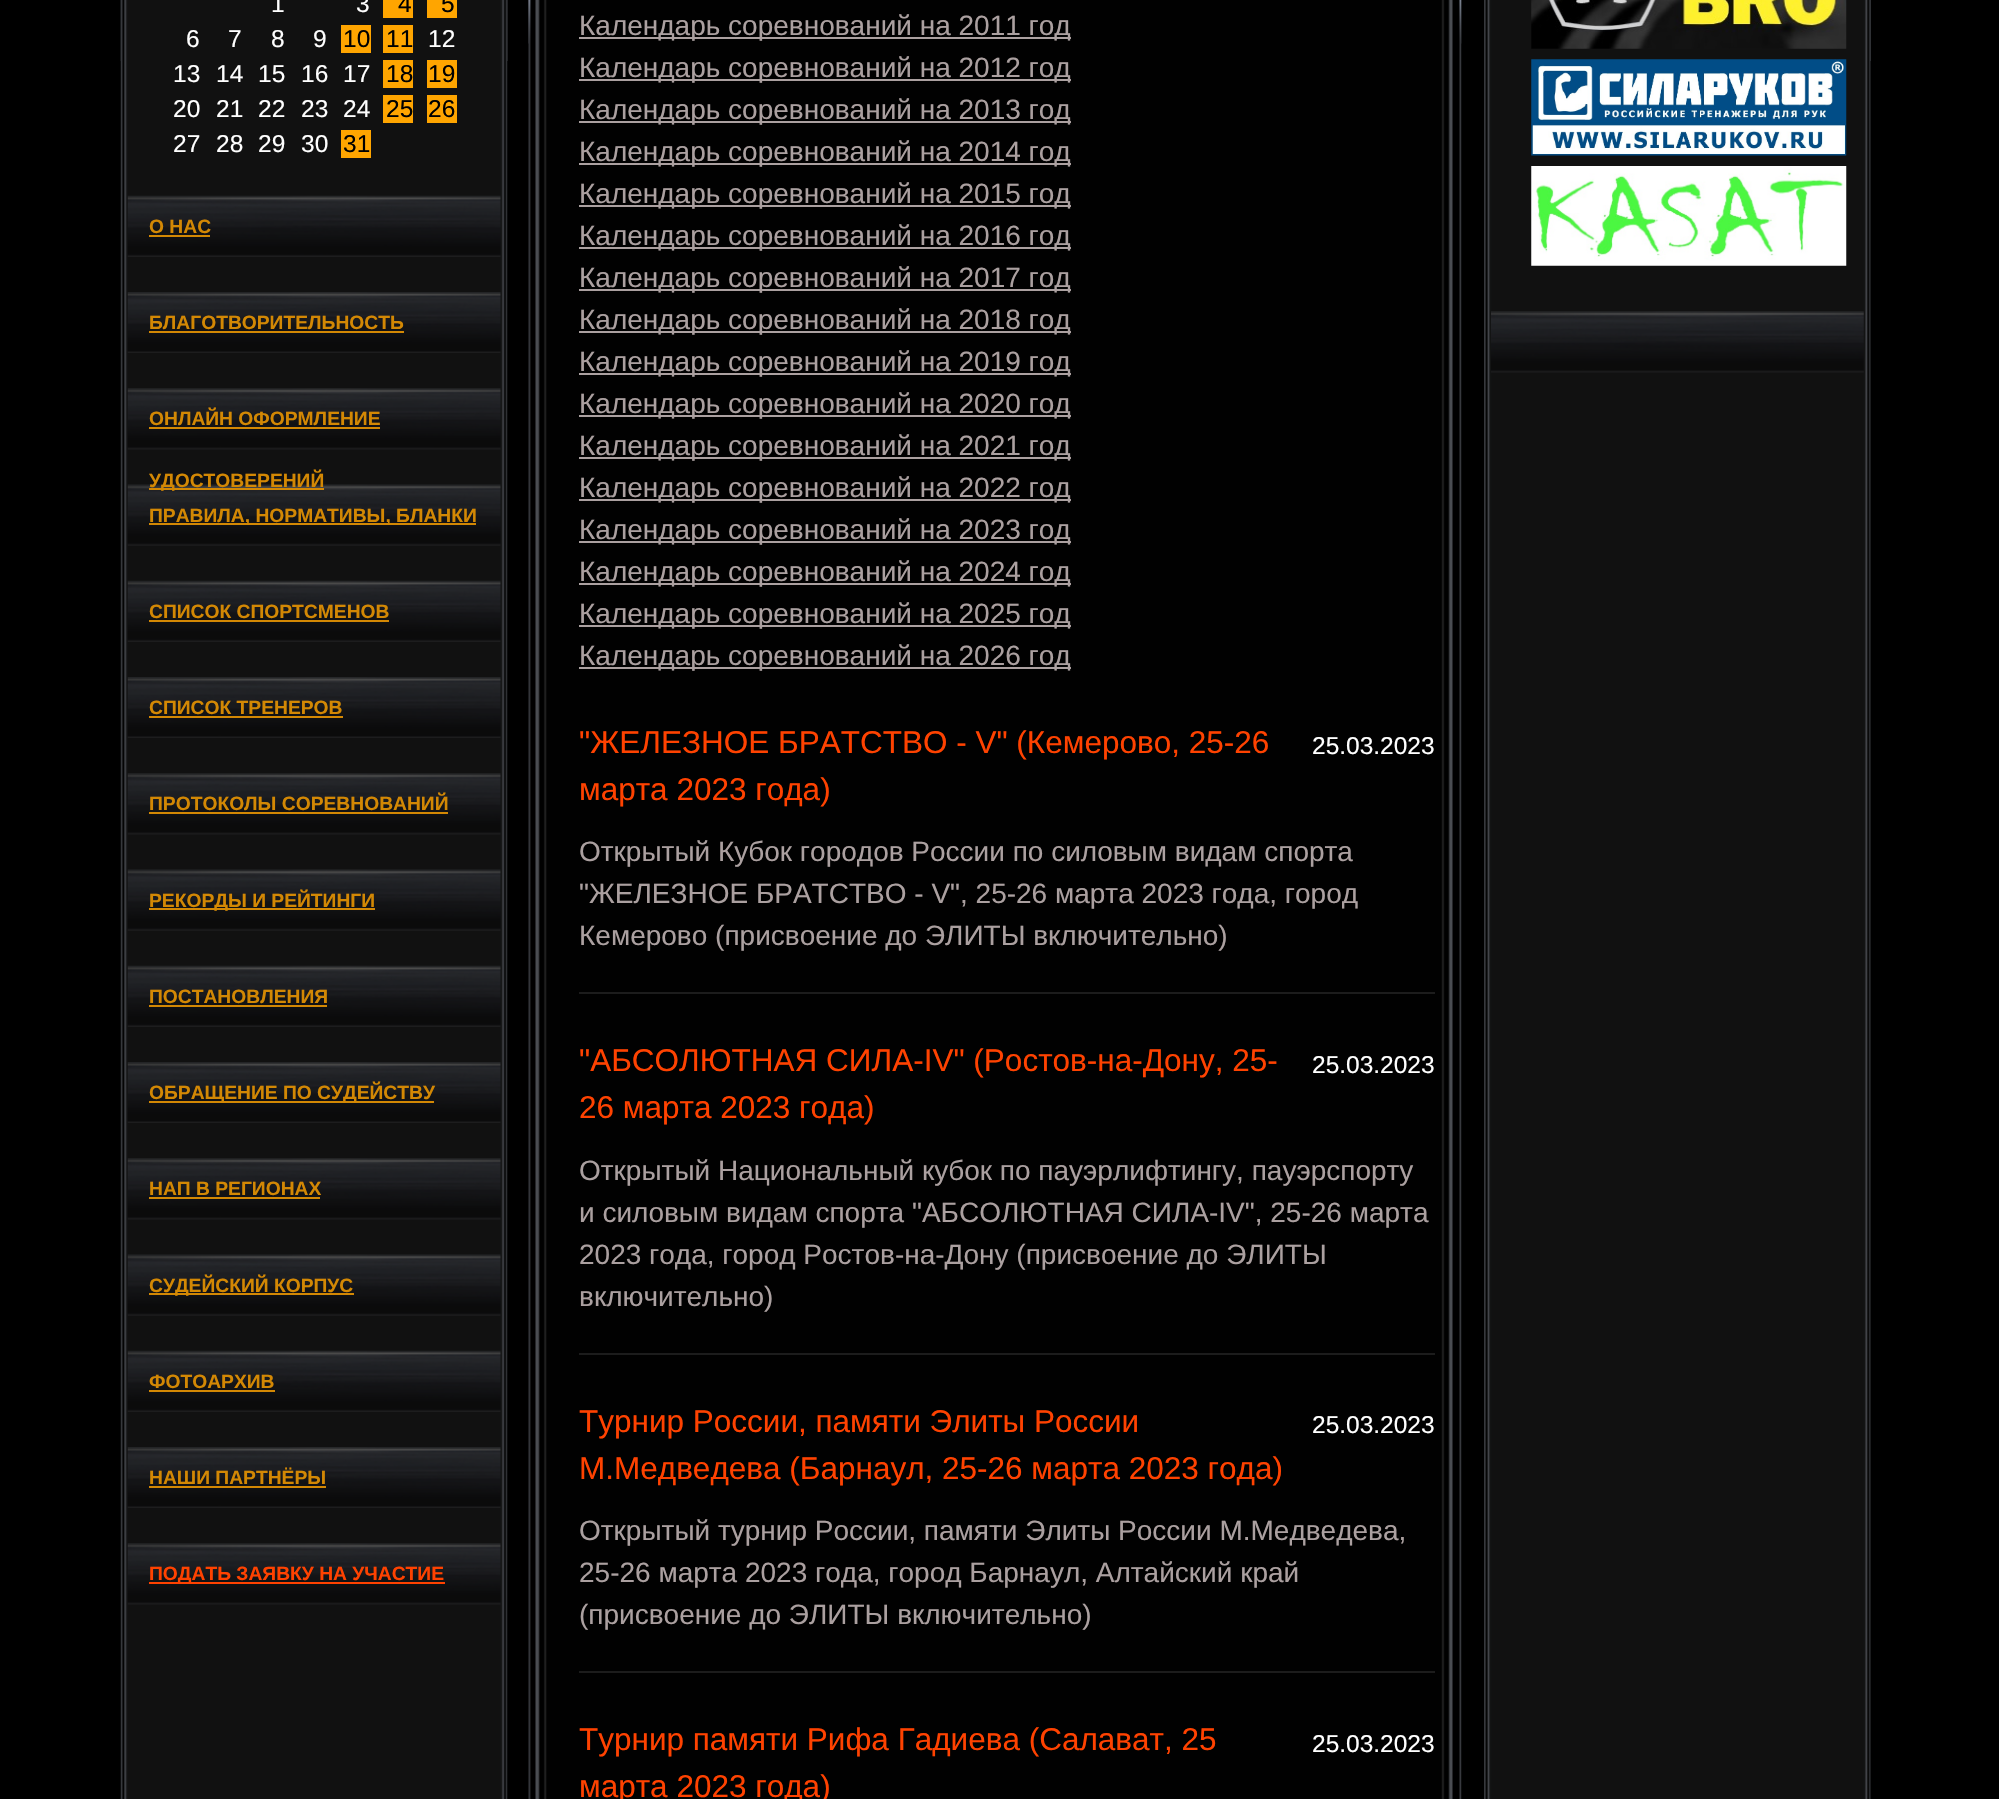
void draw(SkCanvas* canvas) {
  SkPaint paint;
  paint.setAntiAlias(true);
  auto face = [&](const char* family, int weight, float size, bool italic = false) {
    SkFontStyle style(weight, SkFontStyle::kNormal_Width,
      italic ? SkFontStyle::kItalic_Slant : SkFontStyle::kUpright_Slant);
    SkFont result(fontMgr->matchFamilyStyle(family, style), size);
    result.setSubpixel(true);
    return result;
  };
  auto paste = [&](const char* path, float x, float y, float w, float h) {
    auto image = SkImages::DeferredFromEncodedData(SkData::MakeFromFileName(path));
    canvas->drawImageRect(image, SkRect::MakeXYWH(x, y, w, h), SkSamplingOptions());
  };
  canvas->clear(0xff000000);
  paste("img/1.png", 120, 0, 388, 1799);
  paste("img/2.png", 120, 0, 388, 61);
  {
    const struct { float x, y, w, h; SkColor color; } items[] = {
      {383, 0, 30, 18, 0xffffa500},
      {427, 0, 30, 18, 0xffffa500},
      {341, 25, 30, 28, 0xffffa500},
      {383, 25, 30, 28, 0xffffa500},
      {383, 60, 30, 28, 0xffffa500},
      {427, 60, 30, 28, 0xffffa500},
      {383, 95, 30, 28, 0xffffa500},
      {427, 95, 30, 28, 0xffffa500},
      {341, 130, 30, 28, 0xffffa500},
    };
    for (auto [x, y, w, h, color] : items) {
      paint.setColor(color);
      canvas->drawRect(SkRect::MakeXYWH(x, y, w, h), paint);
    }
  }
  paste("img/3.png", 127, 195, 374, 62);
  paint.setColor(0xffd38804);
  canvas->drawRect(SkRect::MakeXYWH(149, 235, 61, 2), paint);
  paste("img/4.png", 127, 292, 374, 61);
  canvas->drawRect(SkRect::MakeXYWH(149, 331, 255, 2), paint);
  paste("img/5.png", 127, 388, 374, 62);
  canvas->drawRect(SkRect::MakeXYWH(149, 427, 231, 2), paint);
  paste("img/6.png", 127, 484, 374, 62);
  canvas->drawRect(SkRect::MakeXYWH(149, 488, 175, 2), paint);
  canvas->drawRect(SkRect::MakeXYWH(149, 523, 327, 2), paint);
  paste("img/3.png", 127, 580, 374, 62);
  canvas->drawRect(SkRect::MakeXYWH(149, 620, 240, 2), paint);
  paste("img/4.png", 127, 677, 374, 61);
  canvas->drawRect(SkRect::MakeXYWH(149, 716, 194, 2), paint);
  paste("img/5.png", 127, 773, 374, 62);
  canvas->drawRect(SkRect::MakeXYWH(149, 812, 299, 2), paint);
  paste("img/6.png", 127, 869, 374, 62);
  canvas->drawRect(SkRect::MakeXYWH(149, 908, 226, 2), paint);
  paste("img/3.png", 127, 965, 374, 62);
  canvas->drawRect(SkRect::MakeXYWH(149, 1005, 178, 2), paint);
  paste("img/4.png", 127, 1062, 374, 61);
  canvas->drawRect(SkRect::MakeXYWH(149, 1101, 285, 2), paint);
  paste("img/7.png", 127, 1158, 374, 62);
  canvas->drawRect(SkRect::MakeXYWH(149, 1197, 171, 2), paint);
  paste("img/6.png", 127, 1254, 374, 62);
  canvas->drawRect(SkRect::MakeXYWH(149, 1293, 205, 2), paint);
  paste("img/3.png", 127, 1350, 374, 62);
  canvas->drawRect(SkRect::MakeXYWH(149, 1390, 126, 2), paint);
  paste("img/4.png", 127, 1447, 374, 61);
  canvas->drawRect(SkRect::MakeXYWH(149, 1486, 177, 2), paint);
  paste("img/5.png", 127, 1543, 374, 62);
  paint.setColor(0xffff4200);
  canvas->drawRect(SkRect::MakeXYWH(149, 1582, 296, 2), paint);
  paste("img/8.png", 528, 0, 934, 1799);
  paste("img/9.png", 528, 0, 934, 44);
  {
    const struct { float x, y, w, h; SkColor color; } items[] = {
      {579, 37, 492, 2, 0xffaba0a0},
      {579, 79, 492, 2, 0xffaba0a0},
      {579, 121, 492, 2, 0xffaba0a0},
      {579, 163, 492, 2, 0xffaba0a0},
      {579, 205, 492, 2, 0xffaba0a0},
      {579, 247, 492, 2, 0xffaba0a0},
      {579, 289, 492, 2, 0xffaba0a0},
      {579, 331, 492, 2, 0xffaba0a0},
      {579, 373, 492, 2, 0xffaba0a0},
      {579, 415, 492, 2, 0xffaba0a0},
      {579, 457, 492, 2, 0xffaba0a0},
      {579, 499, 492, 2, 0xffaba0a0},
      {579, 541, 492, 2, 0xffaba0a0},
      {579, 583, 492, 2, 0xffaba0a0},
      {579, 625, 492, 2, 0xffaba0a0},
      {579, 667, 492, 2, 0xffaba0a0},
      {579, 992, 856, 2, 0xff1c1c1c},
      {579, 1353, 856, 2, 0xff1c1c1c},
      {579, 1671, 856, 2, 0xff1c1c1c},
    };
    for (auto [x, y, w, h, color] : items) {
      paint.setColor(color);
      canvas->drawRect(SkRect::MakeXYWH(x, y, w, h), paint);
    }
  }
  paste("img/10.png", 1484, 0, 387, 1799);
  paint.setColor(0xff2f3135);
  canvas->drawRect(SkRect::MakeXYWH(1870, 0, 1, 61), paint);
  paste("img/11.png", 1531, 0, 316, 49);
  paste("img/12.png", 1531, 59, 316, 97);
  paste("img/13.png", 1531, 166, 316, 100);
  paste("img/14.png", 1491, 311, 373, 62);
  auto f0 = face("Liberation Sans", 400, 24.5f);
  paint.setColor(0xffffffff);
  canvas->drawString("1", 271, 12, f0, paint);
  canvas->drawString("3", 356, 12, f0, paint);
  paint.setColor(0xff000000);
  canvas->drawString("4", 398, 12, f0, paint);
  canvas->drawString("5", 441, 12, f0, paint);
  paint.setColor(0xffffffff);
  {
    const struct { const char* s; float x, y; } items[] = {
      {"6", 186, 47},
      {"7", 228, 47},
      {"8", 271, 47},
      {"9", 313, 47},
    };
    for (auto [s, x, y] : items) {
      canvas->drawString(s, x, y, f0, paint);
    }
  }
  paint.setColor(0xff000000);
  canvas->drawString("10", 343, 47, f0, paint);
  canvas->drawString("11", 386, 47, f0, paint);
  paint.setColor(0xffffffff);
  {
    const struct { const char* s; float x, y; } items[] = {
      {"12", 428, 47},
      {"13", 173, 82},
      {"14", 216, 82},
      {"15", 258, 82},
      {"16", 301, 82},
      {"17", 343, 82},
    };
    for (auto [s, x, y] : items) {
      canvas->drawString(s, x, y, f0, paint);
    }
  }
  paint.setColor(0xff000000);
  canvas->drawString("18", 386, 82, f0, paint);
  canvas->drawString("19", 428, 82, f0, paint);
  paint.setColor(0xffffffff);
  {
    const struct { const char* s; float x, y; } items[] = {
      {"20", 173, 117},
      {"21", 216, 117},
      {"22", 258, 117},
      {"23", 301, 117},
      {"24", 343, 117},
    };
    for (auto [s, x, y] : items) {
      canvas->drawString(s, x, y, f0, paint);
    }
  }
  paint.setColor(0xff000000);
  canvas->drawString("25", 386, 117, f0, paint);
  canvas->drawString("26", 428, 117, f0, paint);
  paint.setColor(0xffffffff);
  {
    const struct { const char* s; float x, y; } items[] = {
      {"27", 173, 152},
      {"28", 216, 152},
      {"29", 258, 152},
      {"30", 301, 152},
    };
    for (auto [s, x, y] : items) {
      canvas->drawString(s, x, y, f0, paint);
    }
  }
  paint.setColor(0xff000000);
  canvas->drawString("31", 343, 152, f0, paint);
  auto f1 = face("Liberation Sans", 700, 19.25f);
  paint.setColor(0xffd38804);
  {
    const struct { const char* s; float x, y; } items[] = {
      {"О НАС", 149, 233},
      {"БЛАГОТВОРИТЕЛЬНОСТЬ", 149, 329},
      {"ОНЛАЙН ОФОРМЛЕНИЕ", 149, 425},
      {"УДОСТОВЕРЕНИЙ", 149, 487},
      {"ПРАВИЛА, НОРМАТИВЫ, БЛАНКИ", 149, 522},
      {"СПИСОК СПОРТСМЕНОВ", 149, 618},
      {"СПИСОК ТРЕНЕРОВ", 149, 714},
      {"ПРОТОКОЛЫ СОРЕВНОВАНИЙ", 149, 810},
      {"РЕКОРДЫ И РЕЙТИНГИ", 149, 907},
      {"ПОСТАНОВЛЕНИЯ", 149, 1003},
      {"ОБРАЩЕНИЕ ПО СУДЕЙСТВУ", 149, 1099},
      {"НАП В РЕГИОНАХ", 149, 1195},
      {"СУДЕЙСКИЙ КОРПУС", 149, 1292},
      {"ФОТОАРХИВ", 149, 1388},
      {"НАШИ ПАРТНЁРЫ", 149, 1484},
    };
    for (auto [s, x, y] : items) {
      canvas->drawString(s, x, y, f1, paint);
    }
  }
  paint.setColor(0xffff4200);
  canvas->drawString("ПОДАТЬ ЗАЯВКУ НА УЧАСТИЕ", 149, 1580, f1, paint);
  auto f2 = face("Liberation Sans", 400, 28);
  paint.setColor(0xffaba0a0);
  {
    const struct { const char* s; float x, y; } items[] = {
      {"Календарь соревнований на 2011 год", 579, 35},
      {"Календарь соревнований на 2012 год", 579, 77},
      {"Календарь соревнований на 2013 год", 579, 119},
      {"Календарь соревнований на 2014 год", 579, 161},
      {"Календарь соревнований на 2015 год", 579, 203},
      {"Календарь соревнований на 2016 год", 579, 245},
      {"Календарь соревнований на 2017 год", 579, 287},
      {"Календарь соревнований на 2018 год", 579, 329},
      {"Календарь соревнований на 2019 год", 579, 371},
      {"Календарь соревнований на 2020 год", 579, 413},
      {"Календарь соревнований на 2021 год", 579, 455},
      {"Календарь соревнований на 2022 год", 579, 497},
      {"Календарь соревнований на 2023 год", 579, 539},
      {"Календарь соревнований на 2024 год", 579, 581},
      {"Календарь соревнований на 2025 год", 579, 623},
      {"Календарь соревнований на 2026 год", 579, 665},
    };
    for (auto [s, x, y] : items) {
      canvas->drawString(s, x, y, f2, paint);
    }
  }
  auto f3 = face("Liberation Sans", 400, 31.5f);
  paint.setColor(0xffff4200);
  canvas->drawString("\"ЖЕЛЕЗНОЕ БРАТСТВО - V\" (Кемерово, 25-26", 579, 753, f3, paint);
  paint.setColor(0xffffffff);
  canvas->drawString("25.03.2023", 1312, 754, f0, paint);
  paint.setColor(0xffff4200);
  canvas->drawString("марта 2023 года)", 579, 800, f3, paint);
  paint.setColor(0xffaba0a0);
  {
    const struct { const char* s; float x, y; } items[] = {
      {"Открытый Кубок городов России по силовым видам спорта", 579, 861},
      {"\"ЖЕЛЕЗНОЕ БРАТСТВО - V\", 25-26 марта 2023 года, город", 579, 903},
      {"Кемерово (присвоение до ЭЛИТЫ включительно)", 579, 945},
    };
    for (auto [s, x, y] : items) {
      canvas->drawString(s, x, y, f2, paint);
    }
  }
  paint.setColor(0xffff4200);
  canvas->drawString("\"АБСОЛЮТНАЯ СИЛА-IV\" (Ростов-на-Дону, 25-", 579, 1071, f3, paint);
  paint.setColor(0xffffffff);
  canvas->drawString("25.03.2023", 1312, 1073, f0, paint);
  paint.setColor(0xffff4200);
  canvas->drawString("26 марта 2023 года)", 579, 1118, f3, paint);
  paint.setColor(0xffaba0a0);
  {
    const struct { const char* s; float x, y; } items[] = {
      {"Открытый Национальный кубок по пауэрлифтингу, пауэрспорту", 579, 1180},
      {"и силовым видам спорта \"АБСОЛЮТНАЯ СИЛА-IV\", 25-26 марта", 579, 1222},
      {"2023 года, город Ростов-на-Дону (присвоение до ЭЛИТЫ", 579, 1264},
      {"включительно)", 579, 1306},
    };
    for (auto [s, x, y] : items) {
      canvas->drawString(s, x, y, f2, paint);
    }
  }
  paint.setColor(0xffff4200);
  canvas->drawString("Турнир России, памяти Элиты России", 579, 1432, f3, paint);
  paint.setColor(0xffffffff);
  canvas->drawString("25.03.2023", 1312, 1433, f0, paint);
  paint.setColor(0xffff4200);
  canvas->drawString("М.Медведева (Барнаул, 25-26 марта 2023 года)", 579, 1479, f3, paint);
  paint.setColor(0xffaba0a0);
  {
    const struct { const char* s; float x, y; } items[] = {
      {"Открытый турнир России, памяти Элиты России М.Медведева,", 579, 1540},
      {"25-26 марта 2023 года, город Барнаул, Алтайский край", 579, 1582},
      {"(присвоение до ЭЛИТЫ включительно)", 579, 1624},
    };
    for (auto [s, x, y] : items) {
      canvas->drawString(s, x, y, f2, paint);
    }
  }
  paint.setColor(0xffff4200);
  canvas->drawString("Турнир памяти Рифа Гадиева (Салават, 25", 579, 1750, f3, paint);
  paint.setColor(0xffffffff);
  canvas->drawString("25.03.2023", 1312, 1752, f0, paint);
  paint.setColor(0xffff4200);
  canvas->drawString("марта 2023 года)", 579, 1797, f3, paint);
}
